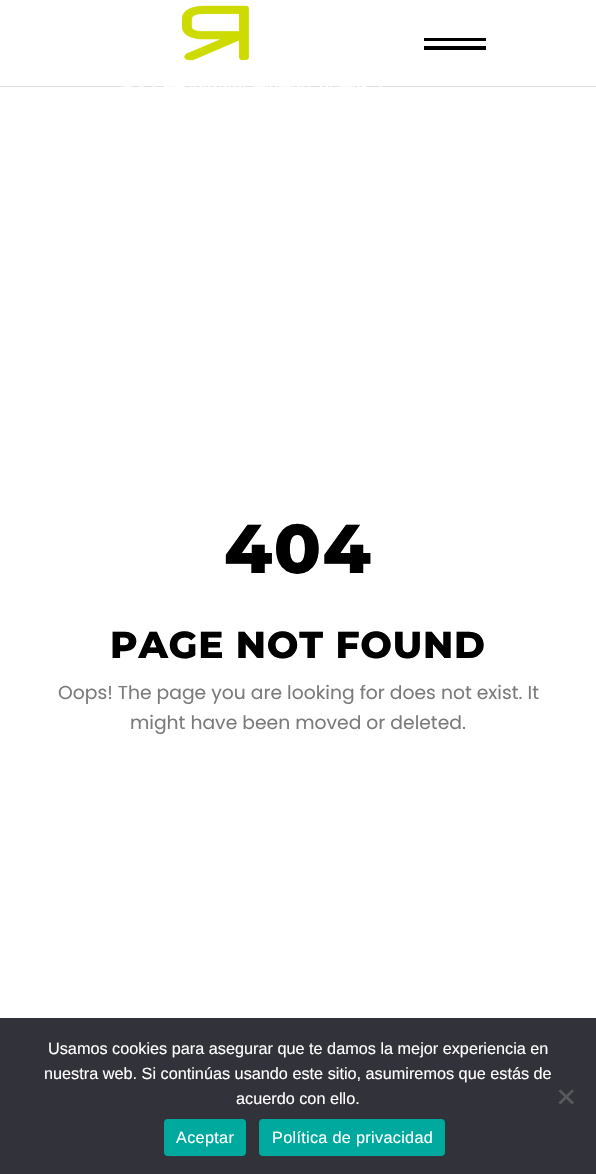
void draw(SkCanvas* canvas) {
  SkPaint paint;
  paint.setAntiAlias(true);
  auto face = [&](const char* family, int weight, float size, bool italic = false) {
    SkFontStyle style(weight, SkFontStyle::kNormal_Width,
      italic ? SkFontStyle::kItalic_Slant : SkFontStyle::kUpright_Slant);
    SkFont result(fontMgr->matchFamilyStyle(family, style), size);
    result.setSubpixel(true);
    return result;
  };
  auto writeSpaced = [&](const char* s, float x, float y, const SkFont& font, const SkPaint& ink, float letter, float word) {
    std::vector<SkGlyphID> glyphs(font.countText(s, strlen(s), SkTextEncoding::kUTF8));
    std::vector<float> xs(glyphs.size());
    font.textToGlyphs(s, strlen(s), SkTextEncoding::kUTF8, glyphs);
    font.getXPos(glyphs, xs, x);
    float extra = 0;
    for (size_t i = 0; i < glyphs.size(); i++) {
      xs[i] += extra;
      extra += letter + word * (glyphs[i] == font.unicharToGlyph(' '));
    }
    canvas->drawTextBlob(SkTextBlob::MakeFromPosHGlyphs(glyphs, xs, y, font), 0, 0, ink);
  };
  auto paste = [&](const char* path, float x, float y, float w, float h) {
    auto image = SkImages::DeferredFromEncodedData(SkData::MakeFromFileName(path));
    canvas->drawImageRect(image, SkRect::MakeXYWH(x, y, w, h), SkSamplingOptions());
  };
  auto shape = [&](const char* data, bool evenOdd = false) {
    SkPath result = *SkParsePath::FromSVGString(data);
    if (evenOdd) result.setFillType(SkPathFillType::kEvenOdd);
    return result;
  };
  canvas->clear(0xffffffff);
  paint.setColor(0xffe1e1e1);
  canvas->drawRect(SkRect::MakeXYWH(0, 86, 596, 1), paint);
  paste("img/1.png", 121, 5, 261, 82);
  {
    const struct { float x, y, w, h; SkColor color; } items[] = {
      {424, 38, 62, 3, 0xff000000},
      {424, 46, 62, 4, 0xff000000},
      {0, 1018, 596, 156, 0xff32323a},
    };
    for (auto [x, y, w, h, color] : items) {
      paint.setColor(color);
      canvas->drawRect(SkRect::MakeXYWH(x, y, w, h), paint);
    }
  }
  paint.setColor(0xff59595d);
  canvas->drawPath(shape("M572 1089.5L574 1091L560.5 1104.5L558.5 1102.5Z"), paint);
  canvas->drawPath(shape("M558.5 1091L560.5 1089.5L574 1102.5L572 1104.5Z"), paint);
  paint.setColor(0xff00a99d);
  canvas->drawRoundRect(SkRect::MakeXYWH(164, 1119, 82, 37), 4, 4, paint);
  canvas->drawRoundRect(SkRect::MakeXYWH(259, 1119, 186, 37), 4, 4, paint);
  auto f0 = face("Montserrat", 800, 69);
  paint.setColor(0xff000000);
  writeSpaced("404", 224, 573, f0, paint, 1.5f, 0);
  auto f1 = face("Montserrat", 800, 37.5f);
  writeSpaced("PAGE NOT FOUND", 110, 658, f1, paint, 0.75f, 0);
  auto f2 = face("Poppins", 400, 18.75f);
  paint.setColor(0xff7b7b7b);
  canvas->drawString("Oops! The page you are looking for does not exist. It", 58, 699, f2, paint);
  canvas->drawString("might have been moved or deleted.", 130, 729, f2, paint);
  auto f3 = face("Liberation Sans", 400, 16.25f);
  paint.setColor(0xffffffff);
  {
    const struct { const char* s; float x, y; } items[] = {
      {"Usamos cookies para asegurar que te damos la mejor experiencia en", 48, 1054},
      {"nuestra web. Si continúas usando este sitio, asumiremos que estás de", 44, 1079},
      {"acuerdo con ello.", 236, 1104},
    };
    for (auto [s, x, y] : items) {
      canvas->drawString(s, x, y, f3, paint);
    }
  }
  writeSpaced("Aceptar", 176, 1143, f3, paint, 0.3f, 0);
  writeSpaced("Política de privacidad", 272, 1143, f3, paint, 0.3f, 0);
}
